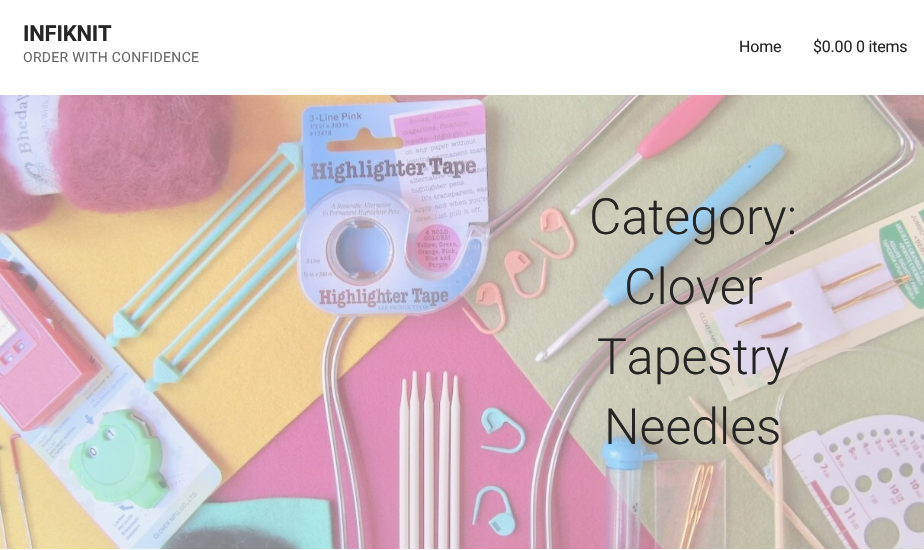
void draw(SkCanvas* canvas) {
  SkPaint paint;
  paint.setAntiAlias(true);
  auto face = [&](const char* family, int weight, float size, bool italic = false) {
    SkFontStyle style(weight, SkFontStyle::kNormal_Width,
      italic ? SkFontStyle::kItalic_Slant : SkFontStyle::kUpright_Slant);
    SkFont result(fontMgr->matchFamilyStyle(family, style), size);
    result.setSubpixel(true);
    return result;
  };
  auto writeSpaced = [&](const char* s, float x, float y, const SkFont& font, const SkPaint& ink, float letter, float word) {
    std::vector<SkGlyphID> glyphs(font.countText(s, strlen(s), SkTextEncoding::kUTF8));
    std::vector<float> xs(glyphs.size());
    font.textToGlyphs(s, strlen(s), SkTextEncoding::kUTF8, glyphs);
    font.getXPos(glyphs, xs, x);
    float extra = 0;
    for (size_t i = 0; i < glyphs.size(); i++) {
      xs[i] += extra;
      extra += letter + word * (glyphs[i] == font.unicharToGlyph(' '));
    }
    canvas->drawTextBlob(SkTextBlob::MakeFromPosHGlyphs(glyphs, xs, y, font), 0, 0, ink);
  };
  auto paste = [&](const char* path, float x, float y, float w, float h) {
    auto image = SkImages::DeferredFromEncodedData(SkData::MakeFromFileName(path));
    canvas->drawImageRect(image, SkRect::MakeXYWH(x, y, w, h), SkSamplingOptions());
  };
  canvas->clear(0xffffffff);
  paste("img/1.png", 0, 95, 924, 454);
  auto f0 = face("Roboto", 700, 22);
  paint.setColor(0xff252525);
  writeSpaced("INFIKNIT", 23, 41, f0, paint, -0.2f, 0);
  auto f1 = face("Roboto", 400, 14);
  paint.setColor(0xff686868);
  writeSpaced("ORDER WITH CONFIDENCE", 23, 62, f1, paint, 0.3f, 0);
  auto f2 = face("Roboto", 400, 16);
  paint.setColor(0xff252525);
  writeSpaced("Home", 739, 52, f2, paint, -0.2f, 0);
  writeSpaced("$0.00 0 items", 813, 52, f2, paint, -0.2f, 0);
  auto f3 = face("Roboto", 300, 50);
  {
    const struct { const char* s; float x, y; } items[] = {
      {"Category:", 589, 234},
      {"Clover", 624, 304},
      {"Tapestry", 597, 374},
      {"Needles", 604, 444},
    };
    for (auto [s, x, y] : items) {
      canvas->drawString(s, x, y, f3, paint);
    }
  }
}
